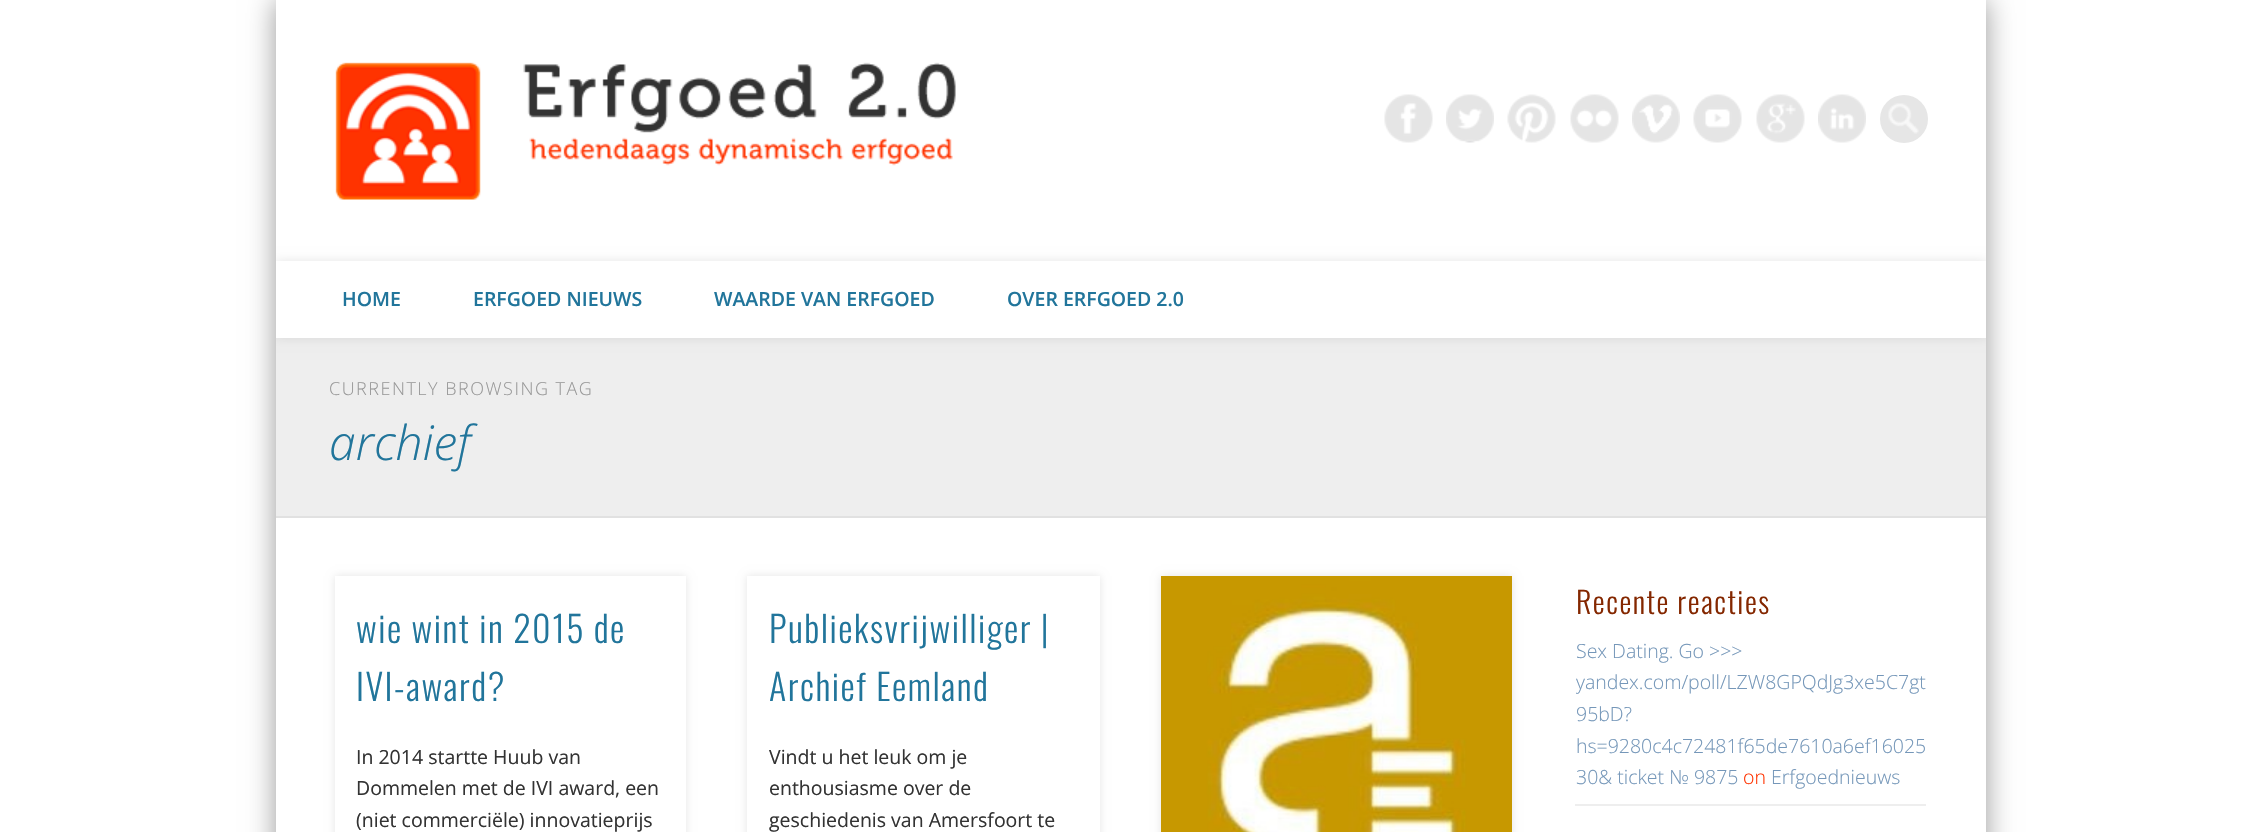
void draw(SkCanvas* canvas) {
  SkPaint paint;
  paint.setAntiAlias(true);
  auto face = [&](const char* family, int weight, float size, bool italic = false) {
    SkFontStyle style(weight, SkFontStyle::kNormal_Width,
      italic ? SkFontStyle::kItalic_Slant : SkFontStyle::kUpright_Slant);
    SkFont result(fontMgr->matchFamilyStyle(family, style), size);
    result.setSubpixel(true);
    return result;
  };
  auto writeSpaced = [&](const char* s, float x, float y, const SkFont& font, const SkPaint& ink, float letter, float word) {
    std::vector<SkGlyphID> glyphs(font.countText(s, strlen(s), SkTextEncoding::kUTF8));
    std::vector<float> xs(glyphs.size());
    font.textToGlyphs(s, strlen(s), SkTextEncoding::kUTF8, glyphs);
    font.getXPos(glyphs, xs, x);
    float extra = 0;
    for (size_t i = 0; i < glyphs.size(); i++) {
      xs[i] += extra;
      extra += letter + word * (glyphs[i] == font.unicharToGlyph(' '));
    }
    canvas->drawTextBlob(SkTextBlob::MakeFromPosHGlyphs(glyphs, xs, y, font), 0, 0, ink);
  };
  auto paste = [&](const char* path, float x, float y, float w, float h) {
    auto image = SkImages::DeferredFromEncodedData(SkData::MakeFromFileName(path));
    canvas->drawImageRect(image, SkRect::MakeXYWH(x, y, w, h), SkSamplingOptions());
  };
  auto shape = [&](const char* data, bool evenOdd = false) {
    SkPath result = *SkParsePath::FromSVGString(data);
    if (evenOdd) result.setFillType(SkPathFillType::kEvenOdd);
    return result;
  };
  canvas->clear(0xffffffff);
  canvas->save();
  canvas->clipPath(shape("M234 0H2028V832H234ZM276 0H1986V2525H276Z", true), true);
  paint.setColor(0x66000000);
  paint.setMaskFilter(SkMaskFilter::MakeBlur(kNormal_SkBlurStyle, 13.5f));
  canvas->drawRect(SkRect::MakeXYWH(276, 0, 1710, 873), paint);
  paint.setMaskFilter(nullptr);
  canvas->restore();
  paste("img/1.png", 335, 62, 621, 138);
  paste("img/2.png", 1384, 94, 49, 49);
  paste("img/3.png", 1446, 94, 48, 49);
  paste("img/4.png", 1507, 94, 49, 49);
  paste("img/5.png", 1570, 94, 49, 49);
  paste("img/6.png", 1632, 94, 48, 49);
  paste("img/7.png", 1693, 94, 49, 49);
  paste("img/8.png", 1756, 94, 49, 49);
  paste("img/9.png", 1818, 94, 48, 49);
  paint.setColor(0xffe6e6e6);
  canvas->drawCircle(1904, 119, 24, paint);
  paste("img/10.png", 1888, 103, 31, 31);
  paint.setColor(0xffeeeeee);
  canvas->drawRect(SkRect::MakeXYWH(276, 338, 1710, 178), paint);
  canvas->save();
  canvas->clipRect(SkRect::MakeXYWH(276, 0, 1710, 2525));
  paint.setColor(0x1a000000);
  paint.setMaskFilter(SkMaskFilter::MakeBlur(kNormal_SkBlurStyle, 5));
  canvas->drawRect(SkRect::MakeXYWH(276, 261, 1710, 77), paint);
  paint.setMaskFilter(nullptr);
  canvas->restore();
  paint.setColor(0xffffffff);
  canvas->drawRect(SkRect::MakeXYWH(276, 261, 1710, 77), paint);
  paint.setColor(0xffe1e1e1);
  canvas->drawRect(SkRect::MakeXYWH(276, 516, 1710, 2), paint);
  paint.setColor(0x1a000000);
  paint.setMaskFilter(SkMaskFilter::MakeBlur(kNormal_SkBlurStyle, 4));
  canvas->drawRect(SkRect::MakeXYWH(335, 576, 351, 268), paint);
  paint.setMaskFilter(nullptr);
  paint.setColor(0xffffffff);
  canvas->drawRect(SkRect::MakeXYWH(335, 576, 351, 256), paint);
  paint.setColor(0x1a000000);
  paint.setMaskFilter(SkMaskFilter::MakeBlur(kNormal_SkBlurStyle, 4));
  canvas->drawRect(SkRect::MakeXYWH(747, 576, 353, 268), paint);
  paint.setMaskFilter(nullptr);
  paint.setColor(0xffffffff);
  canvas->drawRect(SkRect::MakeXYWH(747, 576, 353, 256), paint);
  paint.setColor(0x1a000000);
  paint.setMaskFilter(SkMaskFilter::MakeBlur(kNormal_SkBlurStyle, 4));
  canvas->drawRect(SkRect::MakeXYWH(1161, 576, 351, 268), paint);
  paint.setMaskFilter(nullptr);
  paste("img/11.png", 1161, 576, 351, 256);
  paint.setColor(0xffeeeeee);
  canvas->drawRect(SkRect::MakeXYWH(1575, 804, 351, 2), paint);
  auto f0 = face("Open Sans", 600, 19.5f);
  paint.setColor(0xff21759b);
  {
    const struct { const char* s; float x, y; } items[] = {
      {"HOME", 342, 306},
      {"ERFGOED NIEUWS", 473, 306},
      {"WAARDE VAN ERFGOED", 714, 306},
      {"OVER ERFGOED 2.0", 1007, 306},
    };
    for (auto [s, x, y] : items) {
      canvas->drawString(s, x, y, f0, paint);
    }
  }
  auto f1 = face("Open Sans", 300, 18);
  paint.setColor(0xff999999);
  writeSpaced("CURRENTLY BROWSING TAG", 329, 395, f1, paint, 1.5f, 0);
  auto f2 = face("Open Sans", 300, 48, true);
  paint.setColor(0xff21759b);
  canvas->drawString("archief", 329, 460, f2, paint);
  auto f3 = face("Oswald", 300, 36);
  writeSpaced("wie wint in 2015 de", 356, 643, f3, paint, 1.5f, 0);
  writeSpaced("IVI-award?", 356, 701, f3, paint, 1.5f, 0);
  auto f4 = face("Open Sans", 400, 19.5f);
  paint.setColor(0xff333333);
  {
    const struct { const char* s; float x, y; } items[] = {
      {"In 2014 startte Huub van", 356, 764},
      {"Dommelen met de IVI award, een", 356, 795},
      {"(niet commerciële) innovatieprijs", 356, 827},
    };
    for (auto [s, x, y] : items) {
      canvas->drawString(s, x, y, f4, paint);
    }
  }
  paint.setColor(0xff21759b);
  writeSpaced("Publieksvrijwilliger |", 769, 643, f3, paint, 1.5f, 0);
  writeSpaced("Archief Eemland", 769, 701, f3, paint, 1.5f, 0);
  paint.setColor(0xff333333);
  {
    const struct { const char* s; float x, y; } items[] = {
      {"Vindt u het leuk om je", 769, 764},
      {"enthousiasme over de", 769, 795},
      {"geschiedenis van Amersfoort te", 769, 827},
    };
    for (auto [s, x, y] : items) {
      canvas->drawString(s, x, y, f4, paint);
    }
  }
  auto f5 = face("Oswald", 300, 30);
  paint.setColor(0xff842700);
  writeSpaced("Recente reacties", 1576, 614, f5, paint, 1.5f, 0);
  auto f6 = face("Open Sans", 300, 19.5f);
  paint.setColor(0xff7597b9);
  {
    const struct { const char* s; float x, y; } items[] = {
      {"Sex Dating. Go >>>", 1576, 658},
      {"yandex.com/poll/LZW8GPQdJg3xe5C7gt", 1576, 689},
      {"95bD?", 1576, 721},
      {"hs=9280c4c72481f65de7610a6ef16025", 1576, 753},
      {"30& ticket № 9875", 1576, 784},
    };
    for (auto [s, x, y] : items) {
      canvas->drawString(s, x, y, f6, paint);
    }
  }
  paint.setColor(0xffff3300);
  canvas->drawString("on", 1743, 784, f6, paint);
  paint.setColor(0xff7597b9);
  canvas->drawString("Erfgoednieuws", 1771, 784, f6, paint);
}
